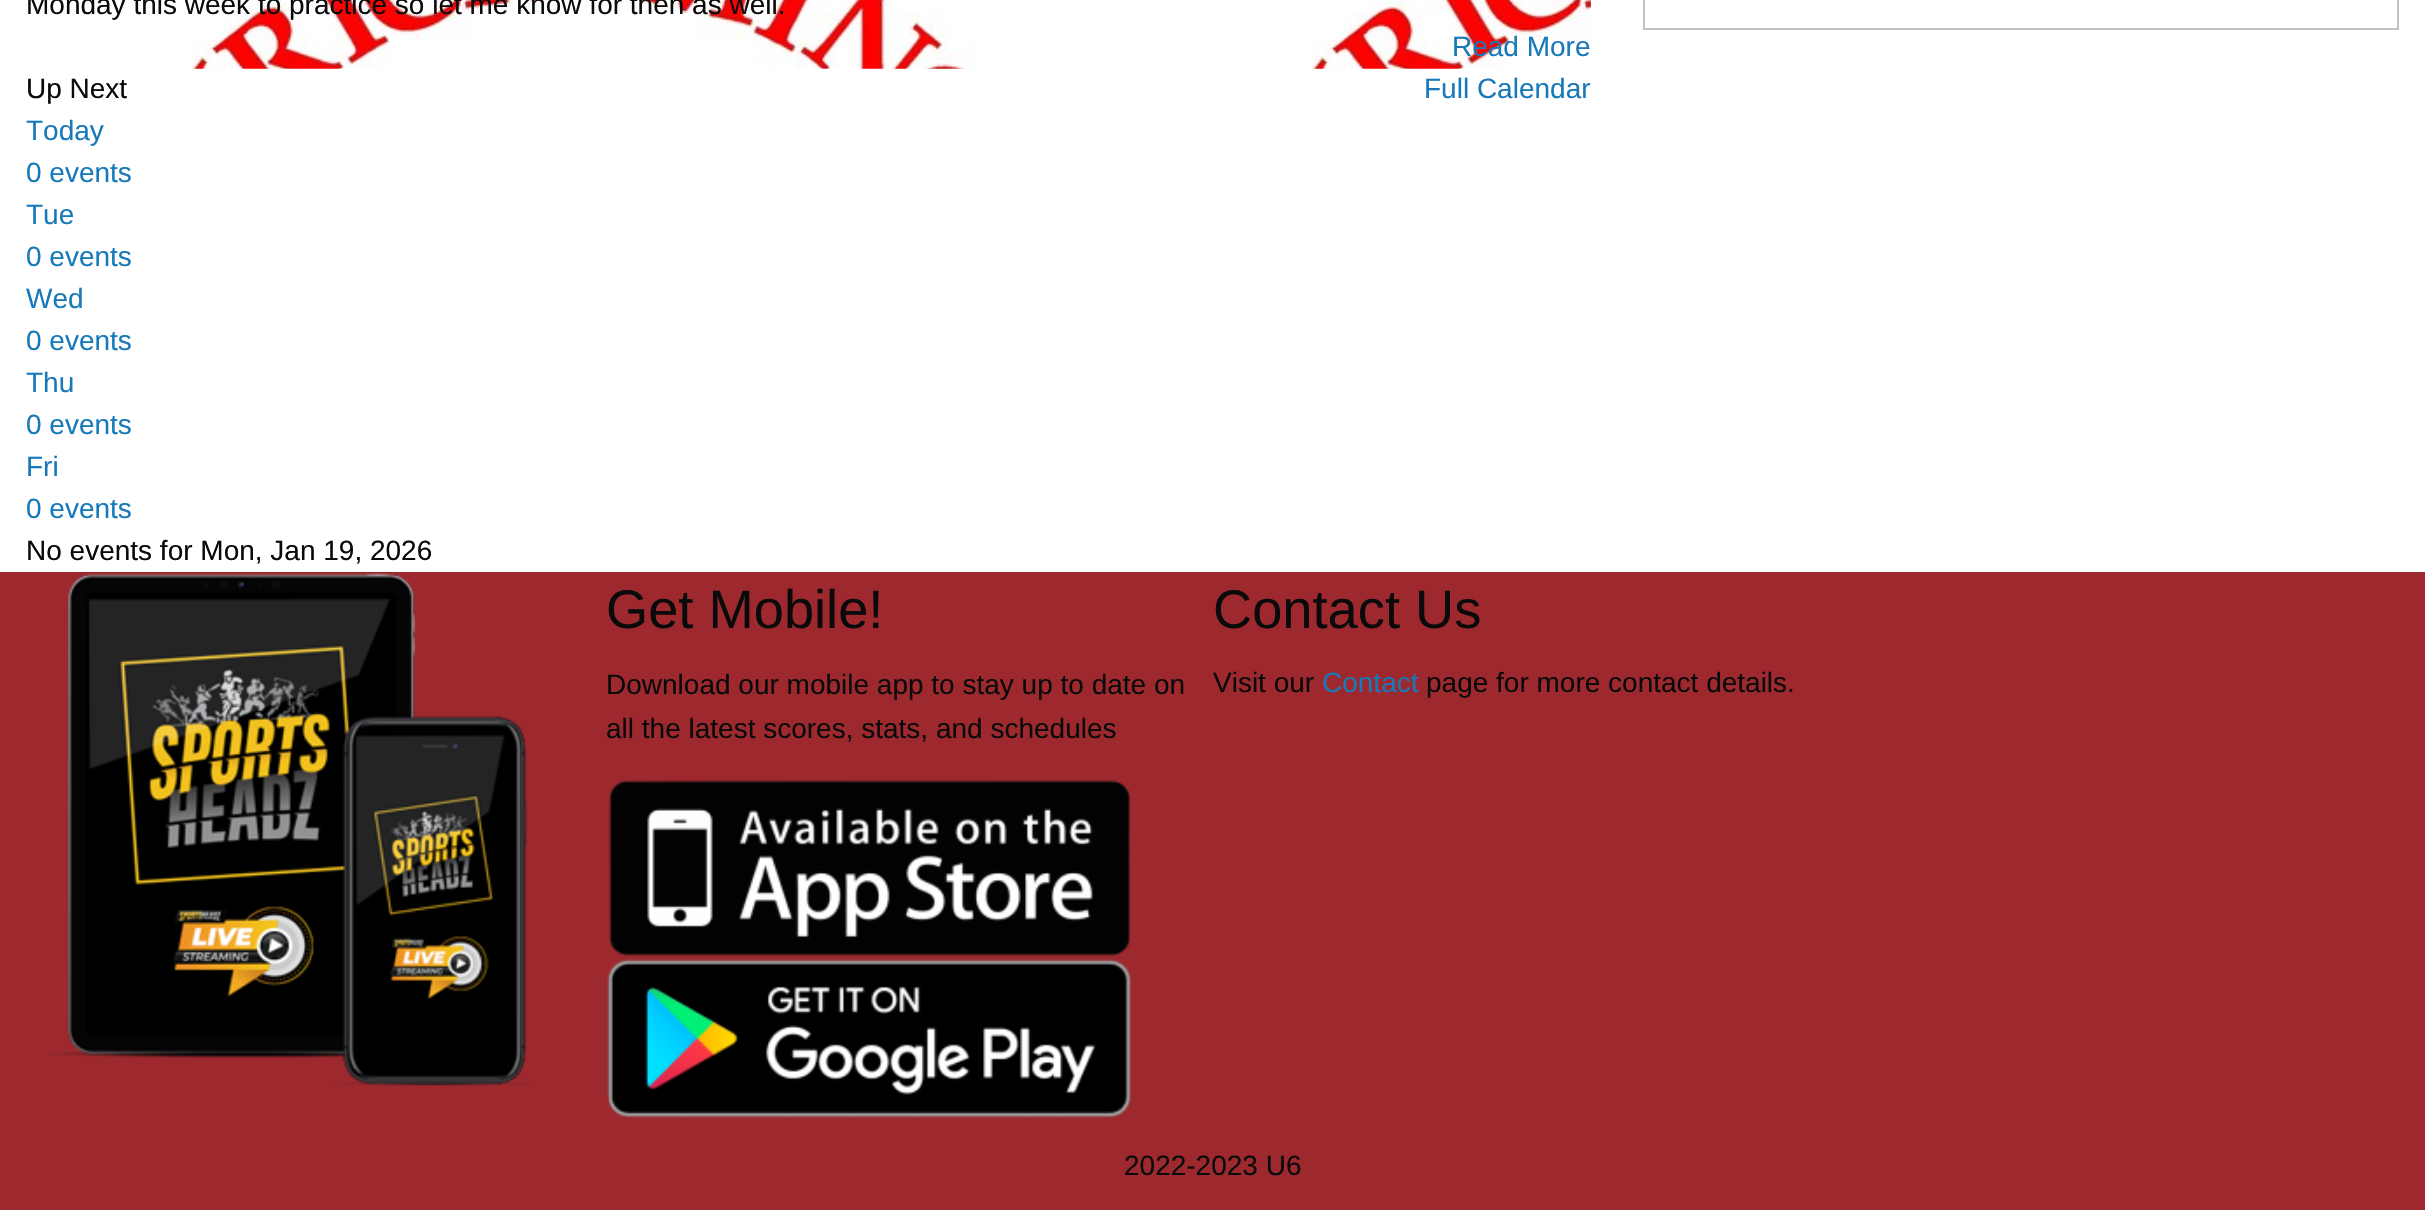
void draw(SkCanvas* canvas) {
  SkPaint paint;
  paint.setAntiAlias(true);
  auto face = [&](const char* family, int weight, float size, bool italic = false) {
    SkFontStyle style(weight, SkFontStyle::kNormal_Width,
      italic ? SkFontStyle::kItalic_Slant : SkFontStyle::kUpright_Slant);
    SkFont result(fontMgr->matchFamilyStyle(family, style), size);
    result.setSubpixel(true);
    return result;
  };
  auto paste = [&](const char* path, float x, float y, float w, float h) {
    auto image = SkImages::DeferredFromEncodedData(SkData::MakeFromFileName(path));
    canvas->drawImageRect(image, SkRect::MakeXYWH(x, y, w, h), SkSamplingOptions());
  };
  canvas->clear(0xff9d292e);
  paint.setColor(0xffffffff);
  canvas->drawRect(SkRect::MakeXYWH(0, 0, 2425, 572), paint);
  paste("img/1.png", 192, 0, 1399, 69);
  paste("img/2.png", 192, 0, 1399, 69);
  paint.setStroke(true);
  paint.setStrokeWidth(2);
  paint.setColor(0xffc2c2c2);
  canvas->drawRect(SkRect::MakeXYWH(1644, -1, 754, 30), paint);
  paste("img/3.png", 48, 572, 487, 514);
  paste("img/4.png", 608, 780, 523, 177);
  paste("img/5.png", 607, 959, 524, 159);
  auto f0 = face("Liberation Sans", 400, 28);
  paint.setStroke(false);
  paint.setColor(0xff0a0a0a);
  canvas->drawString("Monday this week to practice so let me know for then as well.", 26, 14, f0, paint);
  paint.setColor(0xff1779ba);
  canvas->drawString("Read More", 1452, 56, f0, paint);
  paint.setColor(0xff0a0a0a);
  canvas->drawString("Up Next", 26, 98, f0, paint);
  paint.setColor(0xff1779ba);
  {
    const struct { const char* s; float x, y; } items[] = {
      {"Full Calendar", 1424, 98},
      {"Today", 26, 140},
      {"0 events", 26, 182},
      {"Tue", 26, 224},
      {"0 events", 26, 266},
      {"Wed", 26, 308},
      {"0 events", 26, 350},
      {"Thu", 26, 392},
      {"0 events", 26, 434},
      {"Fri", 26, 476},
      {"0 events", 26, 518},
    };
    for (auto [s, x, y] : items) {
      canvas->drawString(s, x, y, f0, paint);
    }
  }
  paint.setColor(0xff0a0a0a);
  canvas->drawString("No events for Mon, Jan 19, 2026", 26, 560, f0, paint);
  auto f1 = face("Liberation Sans", 400, 54.25f);
  canvas->drawString("Get Mobile!", 606, 628, f1, paint);
  canvas->drawString("Download our mobile app to stay up to date on", 606, 694, f0, paint);
  canvas->drawString("all the latest scores, stats, and schedules", 606, 738, f0, paint);
  canvas->drawString("Contact Us", 1213, 628, f1, paint);
  canvas->drawString("Visit our", 1213, 692, f0, paint);
  paint.setColor(0xff1779ba);
  canvas->drawString("Contact", 1322, 692, f0, paint);
  paint.setColor(0xff0a0a0a);
  canvas->drawString("page for more contact details.", 1426, 692, f0, paint);
  canvas->drawString("2022-2023 U6", 1124, 1175, f0, paint);
}
